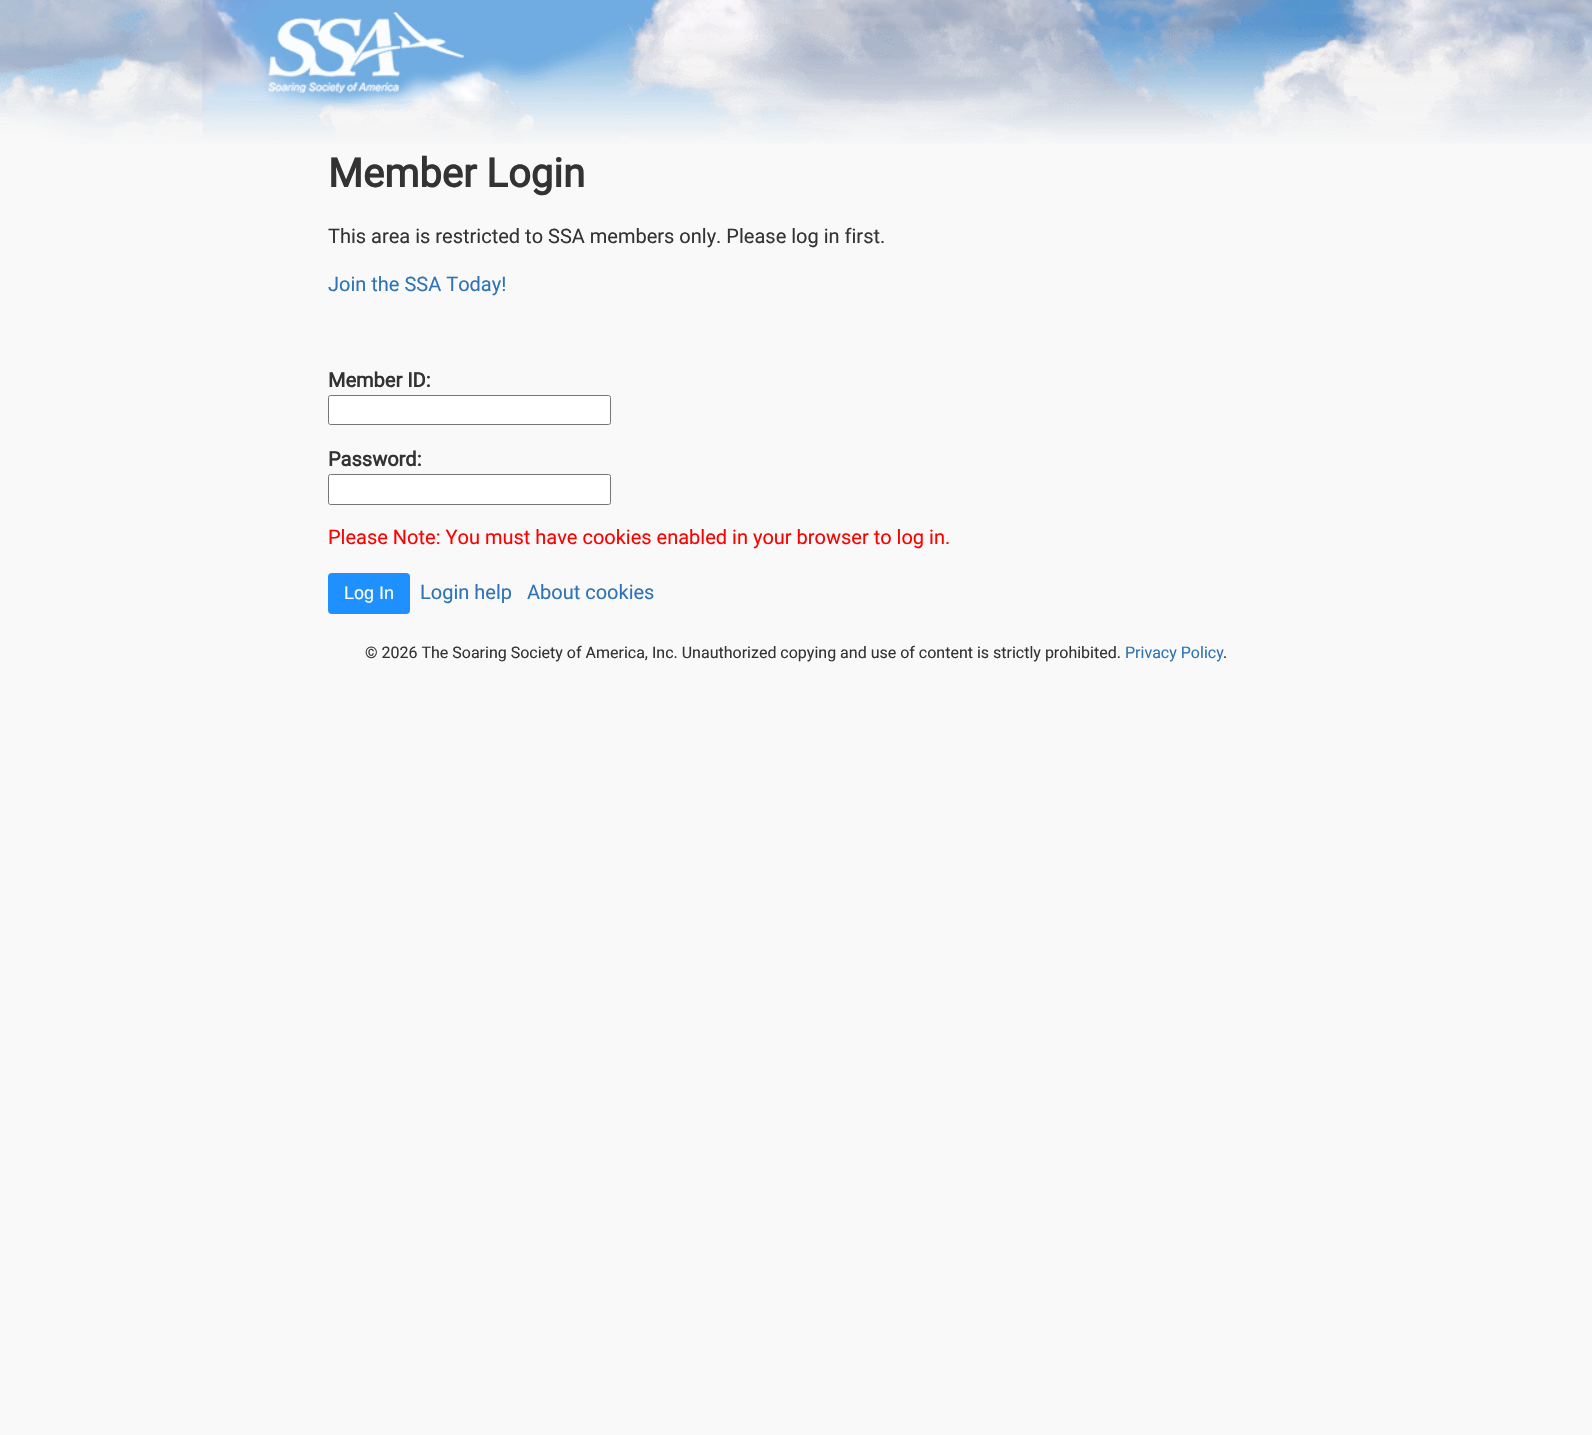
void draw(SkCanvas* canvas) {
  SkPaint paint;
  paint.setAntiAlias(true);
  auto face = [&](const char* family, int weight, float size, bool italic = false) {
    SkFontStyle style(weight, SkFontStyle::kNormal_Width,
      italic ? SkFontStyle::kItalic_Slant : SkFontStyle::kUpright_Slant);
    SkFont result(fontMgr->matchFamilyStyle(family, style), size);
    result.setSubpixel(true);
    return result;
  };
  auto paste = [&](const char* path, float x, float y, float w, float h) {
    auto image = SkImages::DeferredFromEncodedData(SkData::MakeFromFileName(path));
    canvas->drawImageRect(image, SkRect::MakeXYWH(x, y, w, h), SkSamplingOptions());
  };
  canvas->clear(0xfff9f9f9);
  paste("img/1.png", 0, 0, 1592, 144);
  paste("img/2.png", 202, 0, 288, 101);
  paste("img/3.png", 268, 12, 196, 81);
  paint.setColor(0xffffffff);
  canvas->drawRoundRect(SkRect::MakeXYWH(328.5f, 395.5f, 282, 29), 2, 2, paint);
  paint.setStroke(true);
  paint.setStrokeWidth(1);
  paint.setColor(0xff767676);
  canvas->drawRoundRect(SkRect::MakeXYWH(328.5f, 395.5f, 282, 29), 2, 2, paint);
  paint.setStroke(false);
  paint.setColor(0xffffffff);
  canvas->drawRoundRect(SkRect::MakeXYWH(328.5f, 474.5f, 282, 30), 2, 2, paint);
  paint.setStroke(true);
  paint.setColor(0xff767676);
  canvas->drawRoundRect(SkRect::MakeXYWH(328.5f, 474.5f, 282, 30), 2, 2, paint);
  paint.setStroke(false);
  paint.setColor(0xff1e90ff);
  canvas->drawRoundRect(SkRect::MakeXYWH(328, 573, 82, 41), 4, 4, paint);
  auto f0 = face("Roboto", 700, 40);
  paint.setColor(0xff333333);
  canvas->drawString("Member Login", 328, 187, f0, paint);
  auto f1 = face("Roboto", 400, 20);
  canvas->drawString("This area is restricted to SSA members only. Please log in first.", 328, 243, f1, paint);
  paint.setColor(0xff2d73b5);
  canvas->drawString("Join the SSA Today!", 328, 291, f1, paint);
  auto f2 = face("Roboto", 700, 20);
  paint.setColor(0xff333333);
  canvas->drawString("Member ID:", 328, 387, f2, paint);
  canvas->drawString("Password:", 328, 466, f2, paint);
  paint.setColor(0xffff0000);
  canvas->drawString("Please Note: You must have cookies enabled in your browser to log in.", 328, 544, f1, paint);
  auto f3 = face("Liberation Sans", 400, 18);
  paint.setColor(0xffffffff);
  canvas->drawString("Log In", 344, 599, f3, paint);
  paint.setColor(0xff2d73b5);
  canvas->drawString("Login help", 420, 599, f1, paint);
  canvas->drawString("About cookies", 527, 599, f1, paint);
  auto f4 = face("Roboto", 400, 16);
  paint.setColor(0xff333333);
  canvas->drawString("© 2026 The Soaring Society of America, Inc. Unauthorized copying and use of content is strictly prohibited.", 365, 658, f4, paint);
  paint.setColor(0xff2d73b5);
  canvas->drawString("Privacy Policy", 1125, 658, f4, paint);
  paint.setColor(0xff333333);
  canvas->drawString(".", 1223, 658, f4, paint);
}
